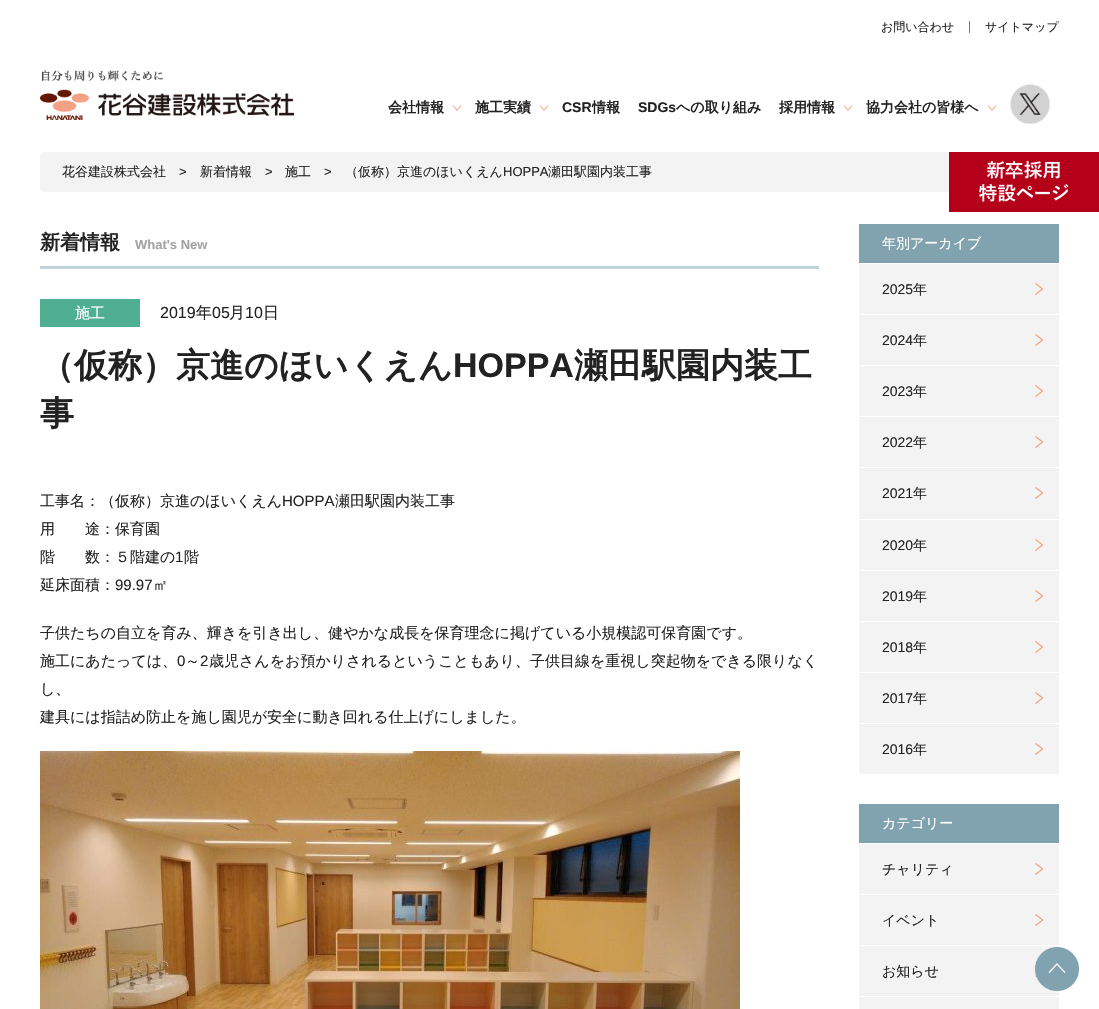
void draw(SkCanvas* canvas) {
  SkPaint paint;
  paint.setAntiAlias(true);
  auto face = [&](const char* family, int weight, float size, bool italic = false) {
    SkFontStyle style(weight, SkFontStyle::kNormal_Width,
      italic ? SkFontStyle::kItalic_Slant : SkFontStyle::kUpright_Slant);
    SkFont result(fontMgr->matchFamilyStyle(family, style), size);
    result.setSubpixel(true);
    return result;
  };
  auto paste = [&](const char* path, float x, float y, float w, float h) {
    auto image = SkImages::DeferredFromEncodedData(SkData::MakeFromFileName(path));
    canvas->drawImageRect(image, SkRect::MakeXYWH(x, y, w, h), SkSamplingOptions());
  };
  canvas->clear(0xffffffff);
  paint.setColor(0xff777777);
  canvas->drawRect(SkRect::MakeXYWH(969, 21, 1, 12), paint);
  paste("img/1.png", 40, 70, 254, 50);
  paste("img/2.png", 452, 105, 10, 6);
  paste("img/2.png", 539, 105, 10, 6);
  paste("img/2.png", 843, 105, 10, 6);
  paste("img/2.png", 987, 105, 10, 6);
  paste("img/3.png", 1010, 84, 40, 40);
  paint.setColor(0xfff3f3f3);
  canvas->drawRoundRect(SkRect::MakeXYWH(40, 152, 1019, 40), 5, 5, paint);
  paste("img/4.png", 949, 152, 150, 60);
  paint.setColor(0xffc0d1d7);
  canvas->drawRect(SkRect::MakeXYWH(40, 266, 779, 3), paint);
  paint.setColor(0xff51af91);
  canvas->drawRect(SkRect::MakeXYWH(40, 299, 100, 28), paint);
  paste("img/5.png", 40, 751, 700, 258);
  paint.setColor(0xff81a3af);
  canvas->drawRect(SkRect::MakeXYWH(859, 224, 200, 39), paint);
  paint.setColor(0xfff3f3f3);
  canvas->drawRect(SkRect::MakeXYWH(859, 264, 200, 50), paint);
  paste("img/6.png", 1035, 283, 9, 12);
  canvas->drawRect(SkRect::MakeXYWH(859, 315, 200, 50), paint);
  paste("img/6.png", 1035, 334, 9, 12);
  canvas->drawRect(SkRect::MakeXYWH(859, 366, 200, 50), paint);
  paste("img/6.png", 1035, 385, 9, 12);
  canvas->drawRect(SkRect::MakeXYWH(859, 417, 200, 50), paint);
  paste("img/6.png", 1035, 436, 9, 12);
  canvas->drawRect(SkRect::MakeXYWH(859, 468, 200, 51), paint);
  paste("img/6.png", 1035, 487, 9, 12);
  canvas->drawRect(SkRect::MakeXYWH(859, 520, 200, 50), paint);
  paste("img/6.png", 1035, 539, 9, 12);
  canvas->drawRect(SkRect::MakeXYWH(859, 571, 200, 50), paint);
  paste("img/6.png", 1035, 590, 9, 12);
  canvas->drawRect(SkRect::MakeXYWH(859, 622, 200, 50), paint);
  paste("img/6.png", 1035, 641, 9, 12);
  canvas->drawRect(SkRect::MakeXYWH(859, 673, 200, 50), paint);
  paste("img/6.png", 1035, 692, 9, 12);
  canvas->drawRect(SkRect::MakeXYWH(859, 724, 200, 50), paint);
  paste("img/6.png", 1035, 743, 9, 12);
  paint.setColor(0xff81a3af);
  canvas->drawRect(SkRect::MakeXYWH(859, 804, 200, 39), paint);
  paint.setColor(0xfff3f3f3);
  canvas->drawRect(SkRect::MakeXYWH(859, 844, 200, 50), paint);
  paste("img/6.png", 1035, 863, 9, 12);
  canvas->drawRect(SkRect::MakeXYWH(859, 895, 200, 50), paint);
  paste("img/6.png", 1035, 914, 9, 12);
  canvas->drawRect(SkRect::MakeXYWH(859, 946, 200, 50), paint);
  paste("img/7.png", 1035, 965, 2, 12);
  canvas->drawRect(SkRect::MakeXYWH(859, 997, 200, 12), paint);
  paste("img/8.png", 1035, 947, 44, 44);
  auto f0 = face("WenQuanYi Zen Hei", 500, 12);
  paint.setColor(0xff222222);
  canvas->drawString("お問い合わせ", 881, 31, f0, paint);
  canvas->drawString("サイトマップ", 985, 31, f0, paint);
  auto f1 = face("WenQuanYi Zen Hei", 700, 14);
  canvas->drawString("会社情報", 388, 112, f1, paint);
  canvas->drawString("施工実績", 475, 112, f1, paint);
  auto f2 = face("Liberation Sans", 700, 14);
  canvas->drawString("CSR", 562, 112, f2, paint);
  canvas->drawString("情報", 592, 112, f1, paint);
  canvas->drawString("SDGs", 638, 112, f2, paint);
  {
    const struct { const char* s; float x, y; } items[] = {
      {"への取り組み", 676, 112},
      {"採用情報", 779, 112},
      {"協力会社の皆様へ", 866, 112},
    };
    for (auto [s, x, y] : items) {
      canvas->drawString(s, x, y, f1, paint);
    }
  }
  auto f3 = face("WenQuanYi Zen Hei", 500, 13);
  canvas->drawString("花谷建設株式会社", 62, 176, f3, paint);
  auto f4 = face("Liberation Sans", 400, 13);
  canvas->drawString(">", 179, 176, f4, paint);
  canvas->drawString("新着情報", 200, 176, f3, paint);
  canvas->drawString(">", 265, 176, f4, paint);
  canvas->drawString("施工", 285, 176, f3, paint);
  canvas->drawString(">", 324, 176, f4, paint);
  canvas->drawString("（仮称）京進のほいくえん", 345, 176, f3, paint);
  canvas->drawString("HOPPA", 503, 176, f4, paint);
  canvas->drawString("瀬田駅園内装工事", 548, 176, f3, paint);
  auto f5 = face("WenQuanYi Zen Hei", 700, 20);
  canvas->drawString("新着情報", 40, 249, f5, paint);
  auto f6 = face("Liberation Sans", 700, 13);
  paint.setColor(0xffa3a3a3);
  canvas->drawString("What's New", 135, 249, f6, paint);
  auto f7 = face("WenQuanYi Zen Hei", 500, 15);
  paint.setColor(0xffffffff);
  canvas->drawString("施工", 75, 318, f7, paint);
  auto f8 = face("Liberation Sans", 400, 16);
  paint.setColor(0xff222222);
  canvas->drawString("2019", 160, 318, f8, paint);
  auto f9 = face("WenQuanYi Zen Hei", 500, 16);
  canvas->drawString("年", 196, 318, f9, paint);
  canvas->drawString("05", 212, 318, f8, paint);
  canvas->drawString("月", 229, 318, f9, paint);
  canvas->drawString("10", 245, 318, f8, paint);
  canvas->drawString("日", 263, 318, f9, paint);
  auto f10 = face("WenQuanYi Zen Hei", 700, 34);
  canvas->drawString("（仮称）京進のほいくえん", 40, 377, f10, paint);
  auto f11 = face("Liberation Sans", 700, 34);
  canvas->drawString("HOPPA", 453, 377, f11, paint);
  canvas->drawString("瀬田駅園内装工", 574, 377, f10, paint);
  canvas->drawString("事", 40, 425, f10, paint);
  canvas->drawString("工事名：（仮称）京進のほいくえん", 40, 506, f7, paint);
  auto f12 = face("Liberation Sans", 400, 15);
  canvas->drawString("HOPPA", 282, 506, f12, paint);
  {
    const struct { const char* s; float x, y; } items[] = {
      {"瀬田駅園内装工事", 335, 506},
      {"用　　途：保育園", 40, 534},
      {"階　　数：５階建の", 40, 562},
    };
    for (auto [s, x, y] : items) {
      canvas->drawString(s, x, y, f7, paint);
    }
  }
  canvas->drawString("1", 175, 562, f12, paint);
  canvas->drawString("階", 184, 562, f7, paint);
  canvas->drawString("延床面積：", 40, 590, f7, paint);
  canvas->drawString("99.97", 115, 590, f12, paint);
  {
    const struct { const char* s; float x, y; } items[] = {
      {"㎡", 153, 590},
      {"子供たちの自立を育み、輝きを引き出し、健やかな成長を保育理念に掲げている小規模認可保育園です。", 40, 638},
      {"施工にあたっては、", 40, 666},
    };
    for (auto [s, x, y] : items) {
      canvas->drawString(s, x, y, f7, paint);
    }
  }
  canvas->drawString("0", 177, 666, f12, paint);
  canvas->drawString("～", 185, 666, f7, paint);
  canvas->drawString("2", 200, 666, f12, paint);
  {
    const struct { const char* s; float x, y; } items[] = {
      {"歳児さんをお預かりされるということもあり、子供目線を重視し突起物をできる限りなく", 209, 666},
      {"し、", 40, 694},
      {"建具には指詰め防止を施し園児が安全に動き回れる仕上げにしました。", 40, 722},
    };
    for (auto [s, x, y] : items) {
      canvas->drawString(s, x, y, f7, paint);
    }
  }
  auto f13 = face("WenQuanYi Zen Hei", 500, 14);
  paint.setColor(0xffffffff);
  canvas->drawString("年別アーカイブ", 882, 248, f13, paint);
  auto f14 = face("Liberation Sans", 400, 14);
  paint.setColor(0xff222222);
  canvas->drawString("2025", 882, 294, f14, paint);
  canvas->drawString("年", 913, 294, f13, paint);
  canvas->drawString("2024", 882, 345, f14, paint);
  canvas->drawString("年", 913, 345, f13, paint);
  canvas->drawString("2023", 882, 396, f14, paint);
  canvas->drawString("年", 913, 396, f13, paint);
  canvas->drawString("2022", 882, 447, f14, paint);
  canvas->drawString("年", 913, 447, f13, paint);
  canvas->drawString("2021", 882, 498, f14, paint);
  canvas->drawString("年", 913, 498, f13, paint);
  canvas->drawString("2020", 882, 550, f14, paint);
  canvas->drawString("年", 913, 550, f13, paint);
  canvas->drawString("2019", 882, 601, f14, paint);
  canvas->drawString("年", 913, 601, f13, paint);
  canvas->drawString("2018", 882, 652, f14, paint);
  canvas->drawString("年", 913, 652, f13, paint);
  canvas->drawString("2017", 882, 703, f14, paint);
  canvas->drawString("年", 913, 703, f13, paint);
  canvas->drawString("2016", 882, 754, f14, paint);
  canvas->drawString("年", 913, 754, f13, paint);
  paint.setColor(0xffffffff);
  canvas->drawString("カテゴリー", 882, 828, f13, paint);
  paint.setColor(0xff222222);
  {
    const struct { const char* s; float x, y; } items[] = {
      {"チャリティ", 882, 874},
      {"イベント", 882, 925},
      {"お知らせ", 882, 976},
    };
    for (auto [s, x, y] : items) {
      canvas->drawString(s, x, y, f13, paint);
    }
  }
}
